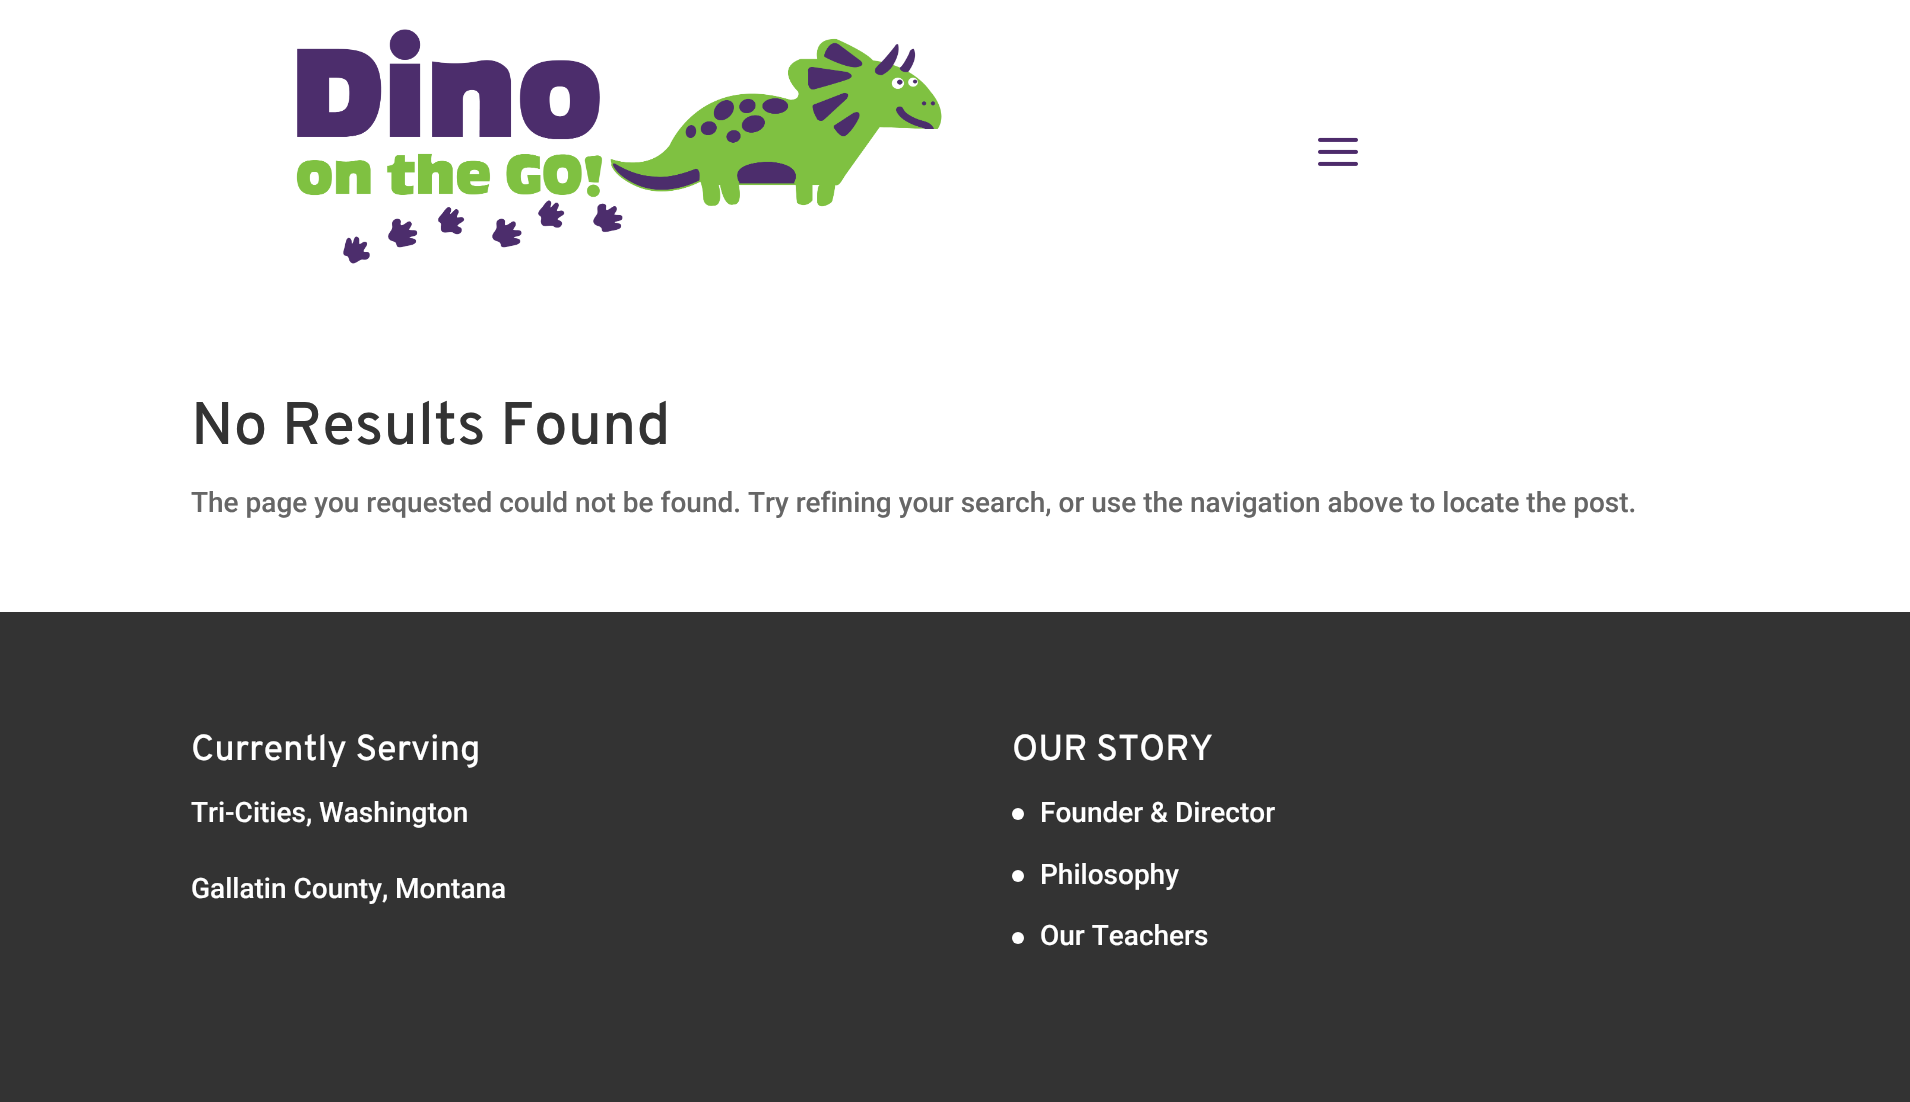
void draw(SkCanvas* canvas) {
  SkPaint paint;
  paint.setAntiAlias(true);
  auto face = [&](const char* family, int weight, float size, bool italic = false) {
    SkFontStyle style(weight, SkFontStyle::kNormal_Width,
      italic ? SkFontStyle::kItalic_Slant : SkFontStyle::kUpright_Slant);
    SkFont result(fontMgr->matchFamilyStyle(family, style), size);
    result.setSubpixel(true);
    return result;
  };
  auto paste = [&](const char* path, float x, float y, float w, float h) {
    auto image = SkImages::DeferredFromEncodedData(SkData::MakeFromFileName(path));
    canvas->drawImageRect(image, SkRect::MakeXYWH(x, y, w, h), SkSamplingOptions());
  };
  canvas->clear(0xffffffff);
  paste("img/1.png", 296, 29, 646, 235);
  paste("img/2.png", 1318, 137, 40, 29);
  paint.setColor(0xff333333);
  canvas->drawRect(SkRect::MakeXYWH(0, 612, 1910, 490), paint);
  paint.setColor(0xffffffff);
  canvas->drawCircle(1018, 814, 6, paint);
  canvas->drawCircle(1018, 876, 6, paint);
  canvas->drawCircle(1018, 938, 6, paint);
  auto f0 = face("Overpass", 500, 60);
  paint.setColor(0xff333333);
  canvas->drawString("No Results Found", 191, 444, f0, paint);
  auto f1 = face("Roboto", 500, 28);
  paint.setColor(0xff666666);
  canvas->drawString("The page you requested could not be found. Try refining your search, or use the navigation above to locate the post.", 191, 512, f1, paint);
  auto f2 = face("Overpass", 500, 36);
  paint.setColor(0xffffffff);
  canvas->drawString("Currently Serving", 191, 760, f2, paint);
  canvas->drawString("Tri-Cities, Washington", 191, 822, f1, paint);
  canvas->drawString("Gallatin County, Montana", 191, 898, f1, paint);
  canvas->drawString("OUR STORY", 1012, 760, f2, paint);
  {
    const struct { const char* s; float x, y; } items[] = {
      {"Founder & Director", 1040, 822},
      {"Philosophy", 1040, 884},
      {"Our Teachers", 1040, 945},
    };
    for (auto [s, x, y] : items) {
      canvas->drawString(s, x, y, f1, paint);
    }
  }
}
